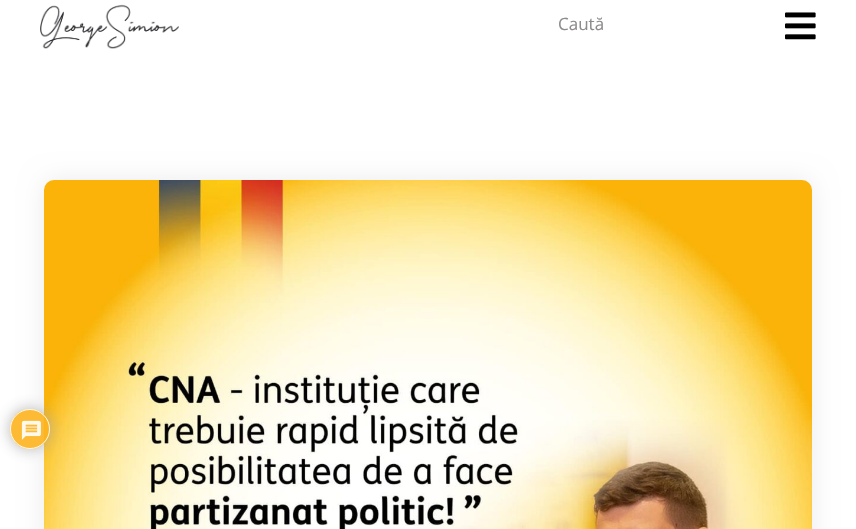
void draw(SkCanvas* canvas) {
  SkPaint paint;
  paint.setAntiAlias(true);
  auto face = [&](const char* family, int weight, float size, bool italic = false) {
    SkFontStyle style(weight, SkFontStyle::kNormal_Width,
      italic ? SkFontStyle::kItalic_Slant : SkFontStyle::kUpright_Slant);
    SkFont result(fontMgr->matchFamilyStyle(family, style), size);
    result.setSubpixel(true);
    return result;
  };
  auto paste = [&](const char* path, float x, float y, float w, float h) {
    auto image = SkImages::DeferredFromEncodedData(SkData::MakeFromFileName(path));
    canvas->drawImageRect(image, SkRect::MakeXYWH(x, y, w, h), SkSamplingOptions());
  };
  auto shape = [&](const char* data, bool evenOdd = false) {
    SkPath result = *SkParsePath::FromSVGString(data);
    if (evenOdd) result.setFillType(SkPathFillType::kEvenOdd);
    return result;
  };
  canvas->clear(0xffffffff);
  paste("img/1.png", 40, 4, 139, 45);
  paste("img/2.png", 785, 12, 31, 28);
  paint.setColor(0x14000000);
  paint.setMaskFilter(SkMaskFilter::MakeBlur(kNormal_SkBlurStyle, 12.5f));
  canvas->drawRoundRect(SkRect::MakeXYWH(44, 180, 768, 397), 10, 10, paint);
  paint.setMaskFilter(nullptr);
  paste("img/3.png", 44, 180, 768, 349);
  canvas->save();
  canvas->clipPath(shape("M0 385H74V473H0ZM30 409C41 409 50 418 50 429C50 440 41 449 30 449C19 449 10 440 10 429C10 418 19 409 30 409Z", true), true);
  paint.setColor(0xe6aaaaaa);
  paint.setMaskFilter(SkMaskFilter::MakeBlur(kNormal_SkBlurStyle, 7.5f));
  canvas->drawRoundRect(SkRect::MakeXYWH(10, 409, 40, 40), 20, 20, paint);
  paint.setMaskFilter(nullptr);
  canvas->restore();
  paint.setColor(0xe6fcb21f);
  canvas->drawCircle(30, 429, 20, paint);
  paint.setStroke(true);
  paint.setStrokeWidth(1);
  paint.setColor(0xe6ffffff);
  canvas->drawCircle(30, 429, 19.5f, paint);
  paste("img/4.png", 21, 420, 20, 20);
  auto f0 = face("Open Sans", 400, 17);
  paint.setStroke(false);
  paint.setColor(0xff8e8b8c);
  canvas->drawString("Caută", 558, 30, f0, paint);
}
